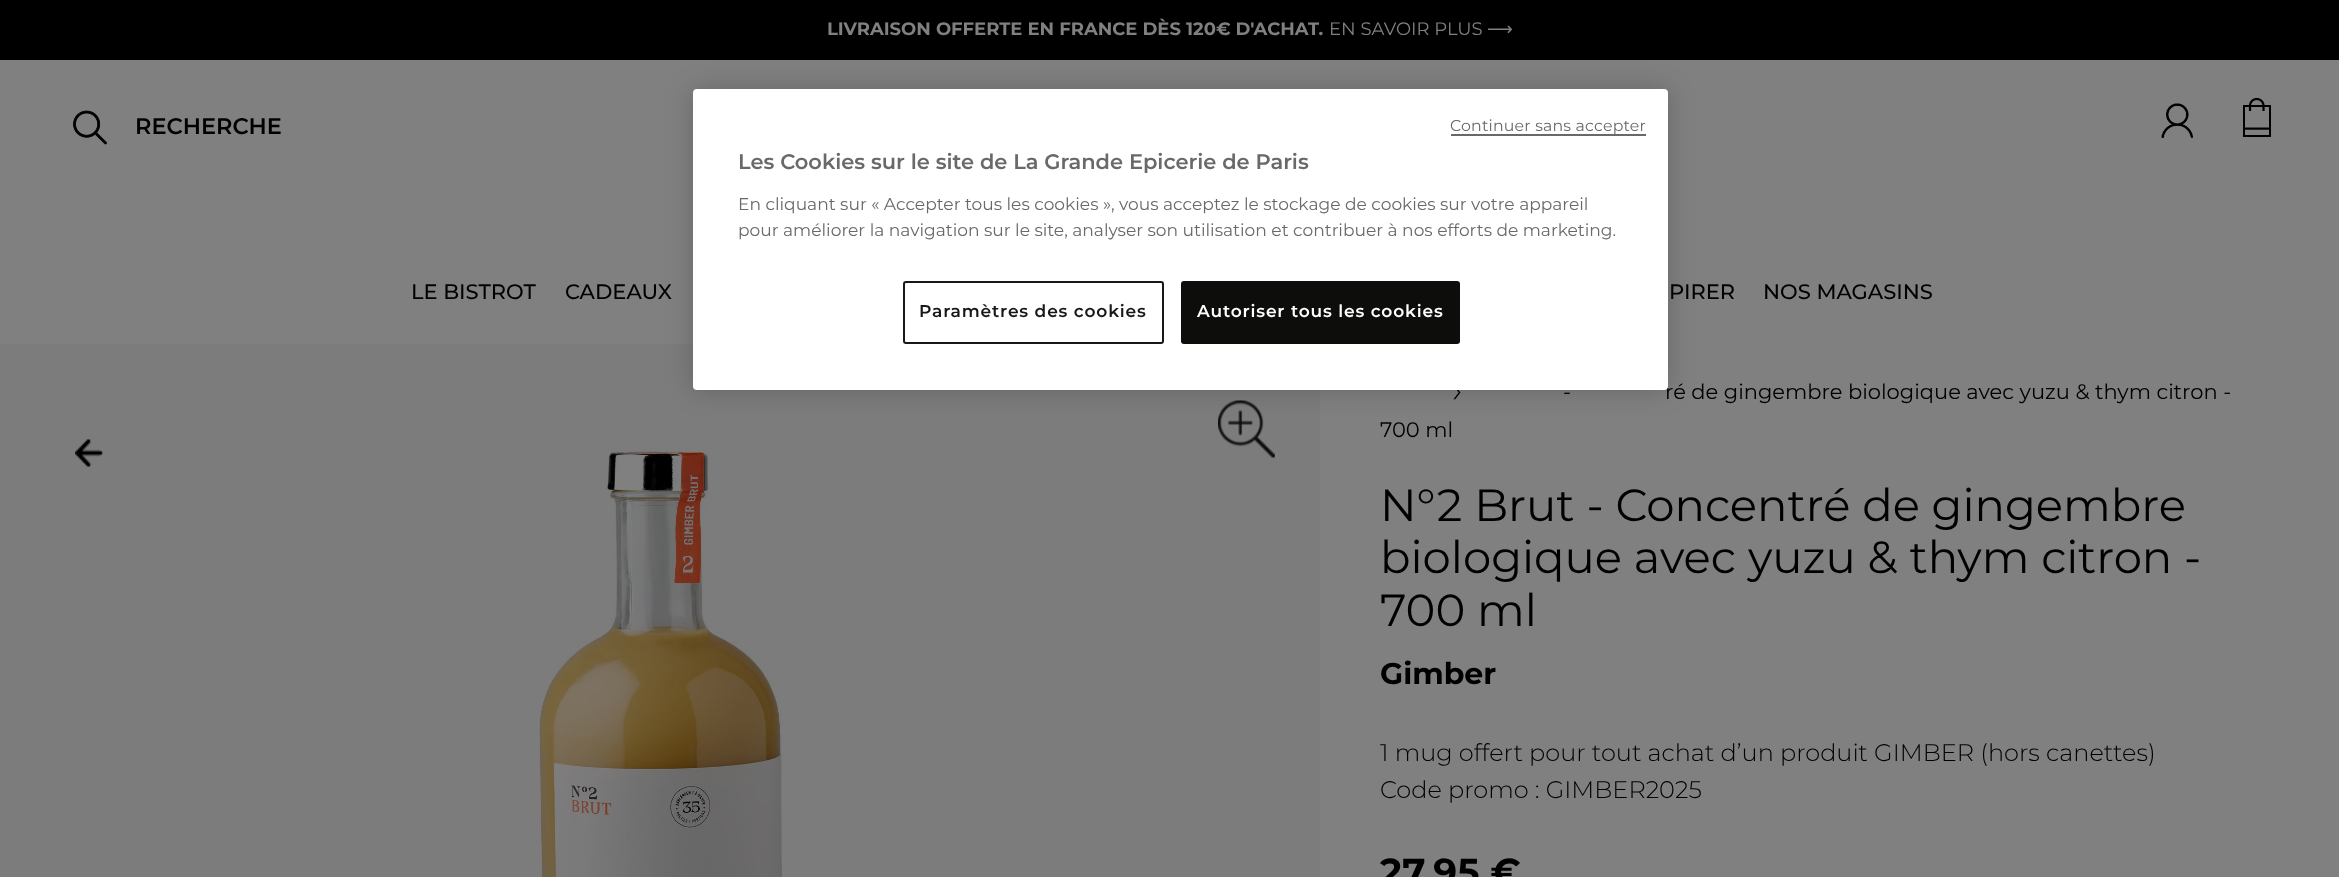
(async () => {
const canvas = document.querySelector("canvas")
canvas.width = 2339
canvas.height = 877
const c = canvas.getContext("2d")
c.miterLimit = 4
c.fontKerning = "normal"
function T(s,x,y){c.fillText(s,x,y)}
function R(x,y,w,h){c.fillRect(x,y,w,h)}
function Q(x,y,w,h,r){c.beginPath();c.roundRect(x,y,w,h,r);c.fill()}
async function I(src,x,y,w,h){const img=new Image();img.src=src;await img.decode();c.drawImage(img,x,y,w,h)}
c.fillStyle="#808080"
R(0,0,2339,877)
c.fillStyle="#000"
R(0,0,2339,60)
c.font="bold 18px Montserrat"
c.fillStyle="#808080"
T("LIVRAISON OFFERTE EN FRANCE DÈS 120€ D'ACHAT.",827,35)
c.font="18px Montserrat"
T("EN SAVOIR PLUS",1329,35)
c.font="18px DejaVu Sans"
T("⟶",1487,35)
await I("1.png",73,110,34,35)
c.font="600 22.5px Montserrat"
c.fillStyle="#000"
T("RECHERCHE",135,134)
await I("2.png",2161,103,32,35)
await I("3.png",2243,97,28,40)
c.font="500 21px Montserrat"
T("LE BISTROT",411,299)
T("CADEAUX",565,299)
T("PIRER",1669,299)
T("NOS MAGASINS",1763,299)
c.fillStyle="#7c7c7c"
R(0,344,1320,533)
await I("4.png",75,439,29,28)
await I("5.png",1218,400,57,58)
await I("6.png",539,449,244,428)
c.font="300 36px Montserrat"
c.fillStyle="#000"
T("›",1452,402)
c.font="21px Montserrat"
T("-",1563,399)
T("ré de gingembre biologique avec yuzu & thym citron -",1665,399)
T("700 ml",1380,437)
c.font="45px Montserrat"
T("N°2 Brut - Concentré de gingembre",1380,521)
T("biologique avec yuzu & thym citron -",1380,573)
T("700 ml",1380,626)
c.font="bold 30px Montserrat"
T("Gimber",1380,684)
c.font="300 24px Montserrat"
T("1 mug offert pour tout achat d’un produit GIMBER (hors canettes)",1380,761)
T("Code promo : GIMBER2025",1380,798)
c.font="bold 37.5px Montserrat"
T("27,95 €",1380,885)
c.fillStyle="#00000033"
c.filter="blur(13.5px)"
c.beginPath()
c.roundRect(693,89,975,301,4)
c.fill()
c.filter="none"
c.fillStyle="#fff"
Q(693,89,975,301,4)
c.fillStyle="#696969"
R(1451,134,195,2)
c.letterSpacing="0.2px"
c.font="15.75px Montserrat"
T("Continuer sans accepter",1450,131)
c.letterSpacing="0px"
c.font="600 21px Montserrat"
T("Les Cookies sur le site de La Grande Epicerie de Paris",738,169)
c.font="17.07px Montserrat"
T("En cliquant sur « Accepter tous les cookies », vous acceptez le stockage de cookies sur votre appareil",738,210)
T("pour améliorer la navigation sur le site, analyser son utilisation et contribuer à nos efforts de marketing.",738,236)
c.beginPath()
c.roundRect(904,282,259,61,2)
c.strokeStyle="#161915"
c.lineWidth=2
c.stroke()
c.letterSpacing="0.85px"
c.font="600 17.07px Montserrat"
c.fillStyle="#161915"
T("Paramètres des cookies",919,317)
c.fillStyle="#0d0d0c"
c.beginPath()
c.roundRect(1182,282,277,61,2)
c.fill()
c.strokeStyle="#0d0d0c"
c.stroke()
c.fillStyle="#fff"
T("Autoriser tous les cookies",1197,317)
})()
